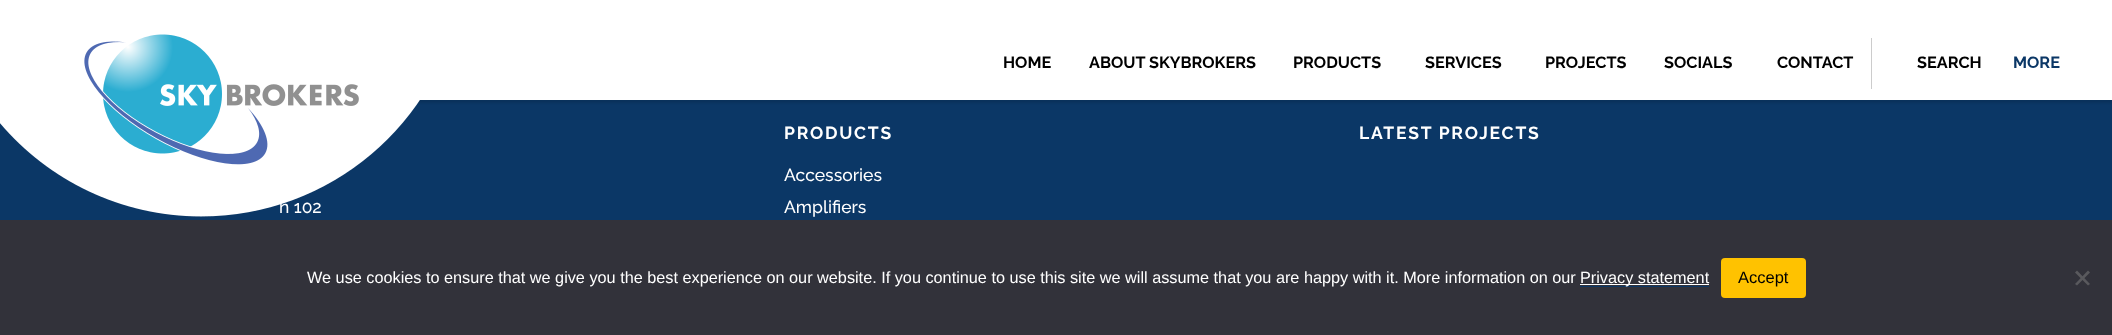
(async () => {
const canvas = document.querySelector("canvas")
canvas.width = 2112
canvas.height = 335
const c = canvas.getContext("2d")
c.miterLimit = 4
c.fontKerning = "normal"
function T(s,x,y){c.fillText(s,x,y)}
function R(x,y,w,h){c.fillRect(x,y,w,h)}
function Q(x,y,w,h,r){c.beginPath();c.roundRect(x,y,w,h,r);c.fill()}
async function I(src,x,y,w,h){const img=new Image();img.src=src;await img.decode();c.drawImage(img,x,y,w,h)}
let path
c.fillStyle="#0b3766"
R(0,0,2112,335)
c.fillStyle="#0000001a"
c.filter="blur(1px)"
c.beginPath()
c.rect(0,3,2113,100)
c.fill()
c.filter="none"
c.fillStyle="#fff"
R(0,0,2112,100)
c.font="500 17.5px Raleway"
T("n 102",279,213)
await I("1.png",0,34,420,183)
c.font="bold 16.25px Raleway"
c.fillStyle="#000"
T("HOME",1003,68)
T("ABOUT SKYBROKERS",1089,68)
T("PRODUCTS",1293,68)
T("SERVICES",1425,68)
T("PROJECTS",1545,68)
T("SOCIALS",1664,68)
T("CONTACT",1777,68)
c.fillStyle="#ccc"
R(1871,38,1,51)
c.fillStyle="#000"
T("SEARCH",1917,68)
c.fillStyle="#0b3766"
T("MORE",2013,68)
c.letterSpacing="1.75px"
c.font="bold 17.5px Raleway"
c.fillStyle="#fff"
T("PRODUCTS",784,139)
c.letterSpacing="0px"
c.font="500 17.5px Raleway"
T("Accessories",784,181)
T("Amplifiers",784,213)
c.letterSpacing="1.75px"
c.font="bold 17.5px Raleway"
T("LATEST PROJECTS",1359,139)
c.fillStyle="#32323a"
R(0,220,2112,115)
c.letterSpacing="0px"
c.font="16.25px Liberation Sans"
c.fillStyle="#fff"
T("We use cookies to ensure that we give you the best experience on our website. If you continue to use this site we will assume that you are happy with it. More information on our",307,283)
c.fillStyle="#0b3766"
R(1580,286,129,1)
c.fillStyle="#fff"
R(1580,284,129,1)
T("Privacy statement",1580,283)
c.fillStyle="#ffc200"
Q(1721,258,85,40,4)
c.font="16.5px Liberation Sans"
c.fillStyle="#000"
T("Accept",1738,283)
c.fillStyle="#59595d"
path = new Path2D("M2088 270.5l2 2l-13 13l-2-1.5z")
c.fill(path)
path = new Path2D("M2075 272.5l2-2l13 13.5l-2 1.5z")
c.fill(path)
})()
